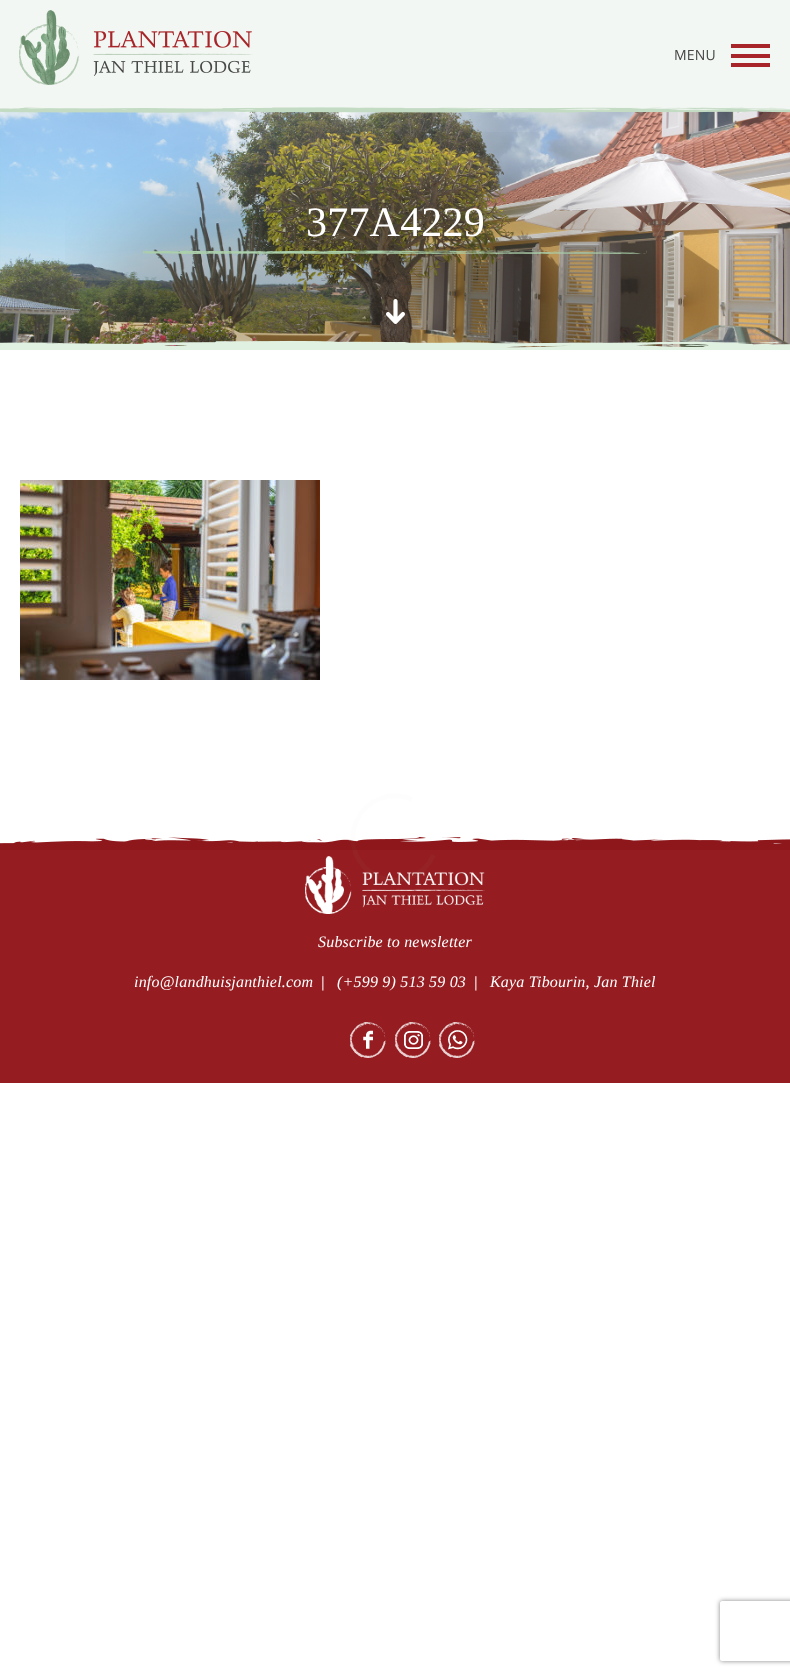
(async () => {
const canvas = document.querySelector("canvas")
canvas.width = 790
canvas.height = 1675
const c = canvas.getContext("2d")
c.miterLimit = 4
c.fontKerning = "normal"
function T(s,x,y){c.fillText(s,x,y)}
function R(x,y,w,h){c.fillRect(x,y,w,h)}
async function I(src,x,y,w,h){const img=new Image();img.src=src;await img.decode();c.drawImage(img,x,y,w,h)}
let path
c.fillStyle="#fff"
R(0,0,790,1675)
c.fillStyle="#f3f7f3"
R(0,0,790,111)
await I("1.png",19,10,234,75)
c.fillStyle="#a72529"
R(731,44,39,4)
c.letterSpacing="0.2px"
c.font="14px Open Sans"
c.fillStyle="#454645"
T("MENU",674,60)
c.fillStyle="#a72529"
R(731,54,39,4)
R(731,63,39,4)
await I("3.png",0,111,790,237)
await I("2.png",0,107,790,6)
await I("4.png",65,132,660,216)
await I("5.png",143,250,504,4)
c.font="42px Liberation Serif"
c.fillStyle="#fff"
T("377A4229",306,236)
await I("6.png",386,299,19,25)
await I("7.png",0,341,790,9)
await I("8.png",20,480,300,200)
c.fillStyle="#951d21"
R(0,850,790,233)
await I("9.png",0,836,790,14)
await I("10.png",305,856,180,58)
path = new Path2D("M433.5 855c-9.5 21.5-34.5 31-55.5 21.5c-21.5-9.5-31-34.5-21.5-55.5c9.5-21.5 34.5-31 55.5-21.5")
c.strokeStyle="#a7cda708"
c.lineWidth=4.8
c.stroke(path)
c.font="italic 16px Liberation Serif"
c.fillStyle="#fff"
T("Subscribe to newsletter",318,947)
T("info@landhuisjanthiel.com",134,987)
c.font="14px Open Sans"
T("|",319,987)
c.font="italic 16px Liberation Serif"
T("(+599 9) 513 59 03",337,987)
c.font="14px Open Sans"
T("|",472,987)
c.font="italic 16px Liberation Serif"
T("Kaya Tibourin, Jan Thiel",490,987)
await I("11.png",350,1022,36,36)
await I("12.png",395,1022,36,36)
await I("13.png",439,1022,36,36)
c.save()
path = new Path2D("M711 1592h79v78h-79zm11 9h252c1 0 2 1 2 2v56c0 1-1 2-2 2h-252c-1 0-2-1-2-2v-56c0-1 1-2 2-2z")
c.clip(path,"evenodd")
c.fillStyle="#848484"
c.filter="blur(2.5px)"
c.beginPath()
c.roundRect(720,1601,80,60,2)
c.fill()
c.filter="none"
c.restore()
})()
